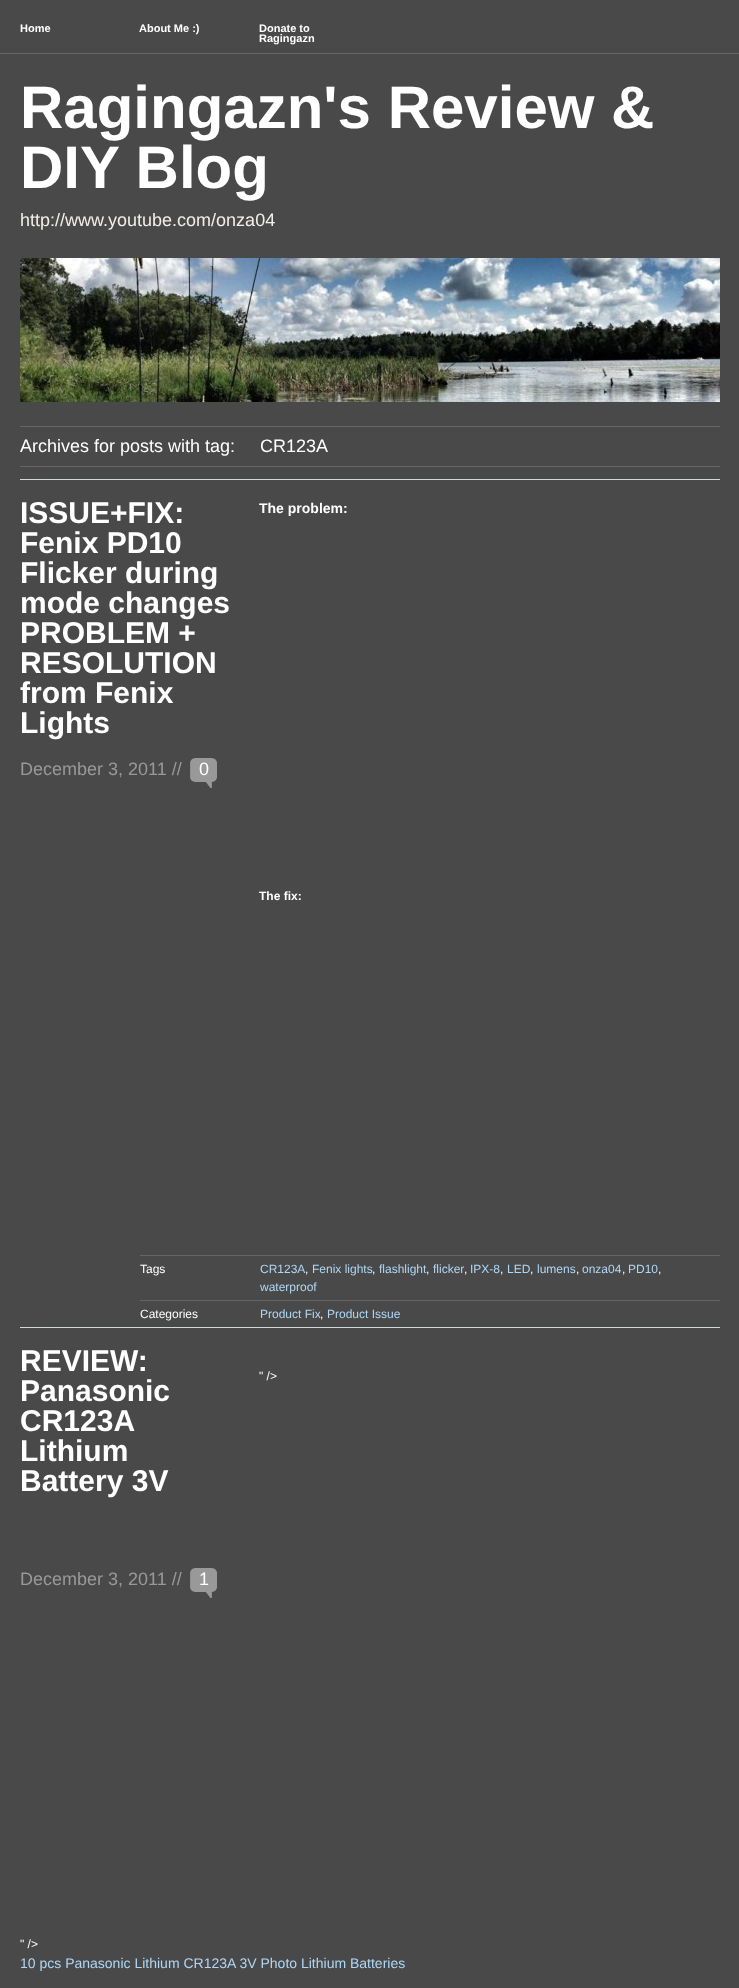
(async () => {
const canvas = document.querySelector("canvas")
canvas.width = 739
canvas.height = 1988
const c = canvas.getContext("2d")
c.miterLimit = 4
c.fontKerning = "normal"
function T(s,x,y){c.fillText(s,x,y)}
function R(x,y,w,h){c.fillRect(x,y,w,h)}
async function I(src,x,y,w,h){const img=new Image();img.src=src;await img.decode();c.drawImage(img,x,y,w,h)}
c.fillStyle="#494949"
R(0,0,739,1988)
c.fillStyle="#666"
R(0,53,739,1)
c.font="bold 11px Liberation Sans"
c.fillStyle="#fff"
T("Home",20,32)
T("About Me :)",139,32)
T("Donate to",259,32)
T("Ragingazn",259,42)
c.font="bold 60px Liberation Sans"
T("Ragingazn's Review &",20,128)
T("DIY Blog",20,188)
c.font="18px Liberation Sans"
c.fillStyle="#f1efeb"
T("http://www.youtube.com/onza04",20,226)
await I("1.png",20,258,700,144)
c.fillStyle="#666"
R(20,426,700,1)
c.fillStyle="#fff"
T("Archives for posts with tag:",20,452)
T("CR123A",260,452)
c.fillStyle="#666"
R(20,466,700,1)
c.fillStyle="#d1d9dc"
R(20,479,700,1)
c.font="bold 30px Liberation Sans"
c.fillStyle="#fff"
T("ISSUE+FIX:",20,523)
T("Fenix PD10",20,553)
T("Flicker during",20,583)
T("mode changes",20,613)
T("PROBLEM +",20,643)
T("RESOLUTION",20,673)
T("from Fenix",20,703)
T("Lights",20,733)
c.font="18px Liberation Sans"
c.fillStyle="#999"
T("December 3, 2011 //",20,775)
await I("2.png",190,758,27,30)
c.fillStyle="#fff"
T("0",199,775)
c.font="bold 14px Liberation Sans"
T("The problem:",259,513)
c.font="bold 12px Liberation Sans"
T("The fix:",259,900)
c.fillStyle="#666"
R(140,1255,580,1)
c.font="12px Liberation Sans"
c.fillStyle="#fff"
T("Tags",140,1273)
c.fillStyle="#afd7f5"
T("CR123A",260,1273)
c.fillStyle="#fff"
T(",",305,1273)
c.fillStyle="#afd7f5"
T("Fenix lights",312,1273)
c.fillStyle="#fff"
T(",",372,1273)
c.fillStyle="#afd7f5"
T("flashlight",379,1273)
c.fillStyle="#fff"
T(",",426,1273)
c.fillStyle="#afd7f5"
T("flicker",433,1273)
T("IPX-8",470,1273)
T("LED",507,1273)
T("lumens",537,1273)
T("onza04",582,1273)
T("PD10",628,1273)
c.fillStyle="#fff"
T(",",464,1273)
T(",",500,1273)
T(",",530,1273)
T(",",576,1273)
T(",",622,1273)
T(",",658,1273)
c.fillStyle="#afd7f5"
T("waterproof",260,1291)
c.fillStyle="#666"
R(140,1300,580,1)
c.fillStyle="#fff"
T("Categories",140,1318)
c.fillStyle="#afd7f5"
T("Product Fix",260,1318)
c.fillStyle="#fff"
T(",",320,1318)
c.fillStyle="#afd7f5"
T("Product Issue",327,1318)
c.fillStyle="#d1d9dc"
R(20,1327,700,1)
c.font="bold 30px Liberation Sans"
c.fillStyle="#fff"
T("REVIEW:",20,1371)
T("Panasonic",20,1401)
T("CR123A",20,1431)
T("Lithium",20,1461)
T("Battery 3V",20,1491)
c.font="18px Liberation Sans"
c.fillStyle="#999"
T("December 3, 2011 //",20,1585)
await I("2.png",190,1568,27,30)
c.fillStyle="#fff"
T("1",199,1585)
c.font="12px Liberation Sans"
T("\" />",259,1380)
T("\" />",20,1948)
c.font="14px Liberation Sans"
c.fillStyle="#afd7f5"
T("10 pcs Panasonic Lithium CR123A 3V Photo Lithium Batteries",20,1968)
})()
